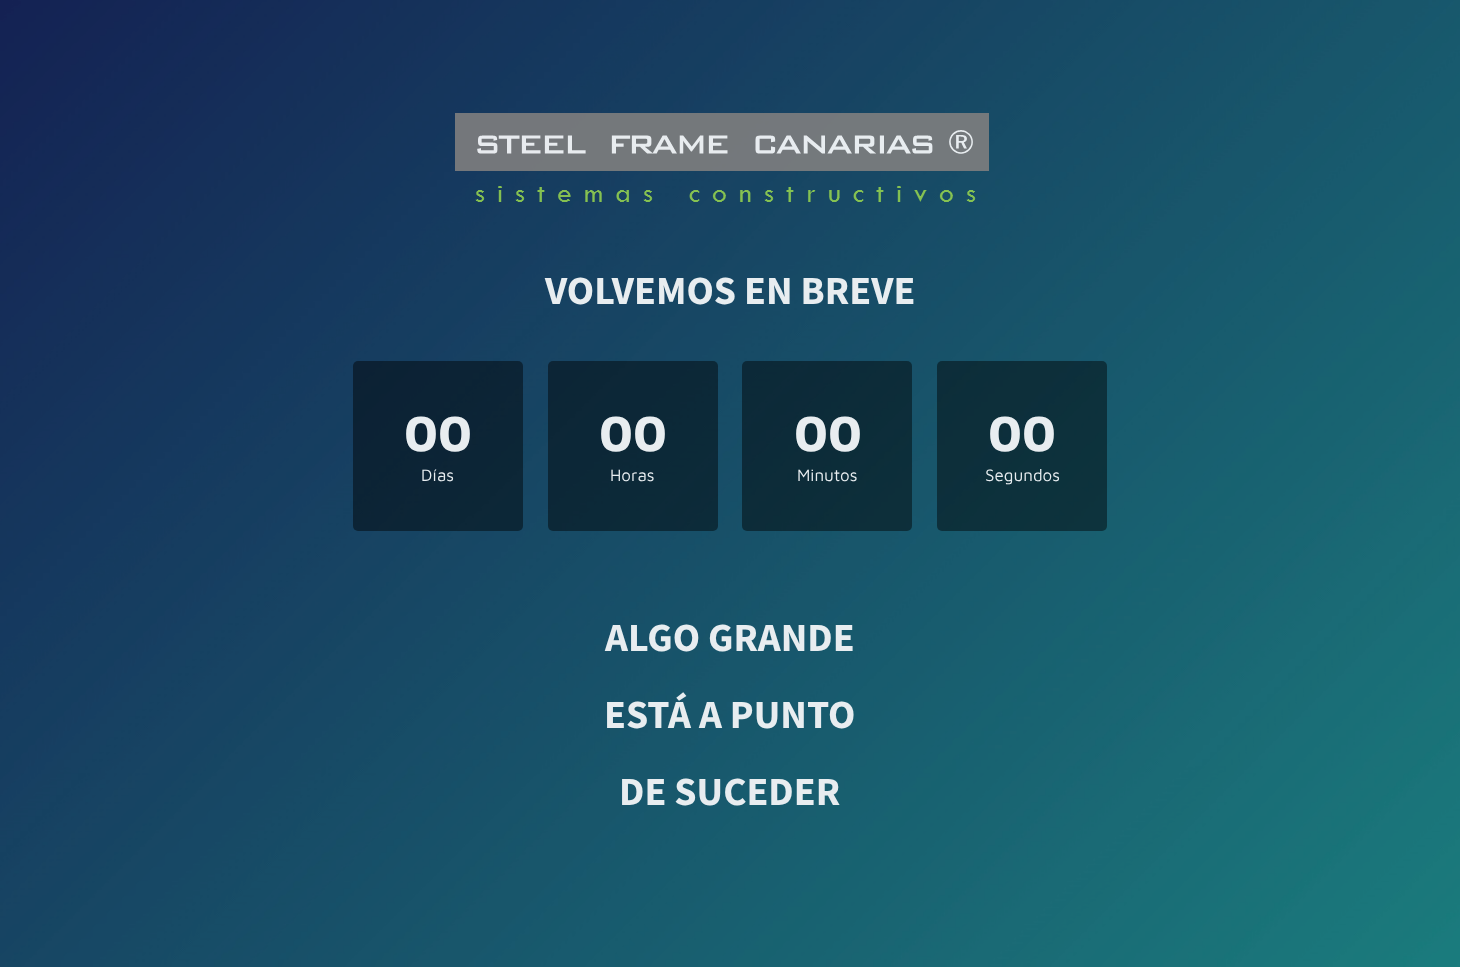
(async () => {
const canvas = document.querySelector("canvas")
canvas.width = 1460
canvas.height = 967
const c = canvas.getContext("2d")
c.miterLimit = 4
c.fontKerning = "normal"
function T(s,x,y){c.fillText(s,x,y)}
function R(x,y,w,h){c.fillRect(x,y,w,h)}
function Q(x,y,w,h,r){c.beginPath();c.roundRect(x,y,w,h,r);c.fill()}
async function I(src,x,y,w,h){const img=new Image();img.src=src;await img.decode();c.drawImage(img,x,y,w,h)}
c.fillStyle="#fff"
R(0,0,1460,967)
await I("1.png",0,0,1460,967)
await I("2.png",455,113,534,89)
c.font="bold 40px Source Sans Pro"
c.fillStyle="#e8edf0"
T("VOLVEMOS EN BREVE",545,304)
c.fillStyle="#00000073"
Q(353,361,170,170,5)
c.font="bold 51px Maven Pro"
c.fillStyle="#e8edf0"
T("00",404,451)
c.font="17px Maven Pro"
T("Días",421,481)
c.fillStyle="#00000073"
Q(548,361,170,170,5)
c.font="bold 51px Maven Pro"
c.fillStyle="#e8edf0"
T("00",599,451)
c.font="17px Maven Pro"
T("Horas",610,481)
c.fillStyle="#00000073"
Q(742,361,170,170,5)
c.font="bold 51px Maven Pro"
c.fillStyle="#e8edf0"
T("00",794,451)
c.font="17px Maven Pro"
T("Minutos",797,481)
c.fillStyle="#00000073"
Q(937,361,170,170,5)
c.font="bold 51px Maven Pro"
c.fillStyle="#e8edf0"
T("00",988,451)
c.font="17px Maven Pro"
T("Segundos",985,481)
c.font="bold 40px Source Sans Pro"
T("ALGO GRANDE",605,651)
T("ESTÁ A PUNTO",604,728)
T("DE SUCEDER",619,805)
})()
